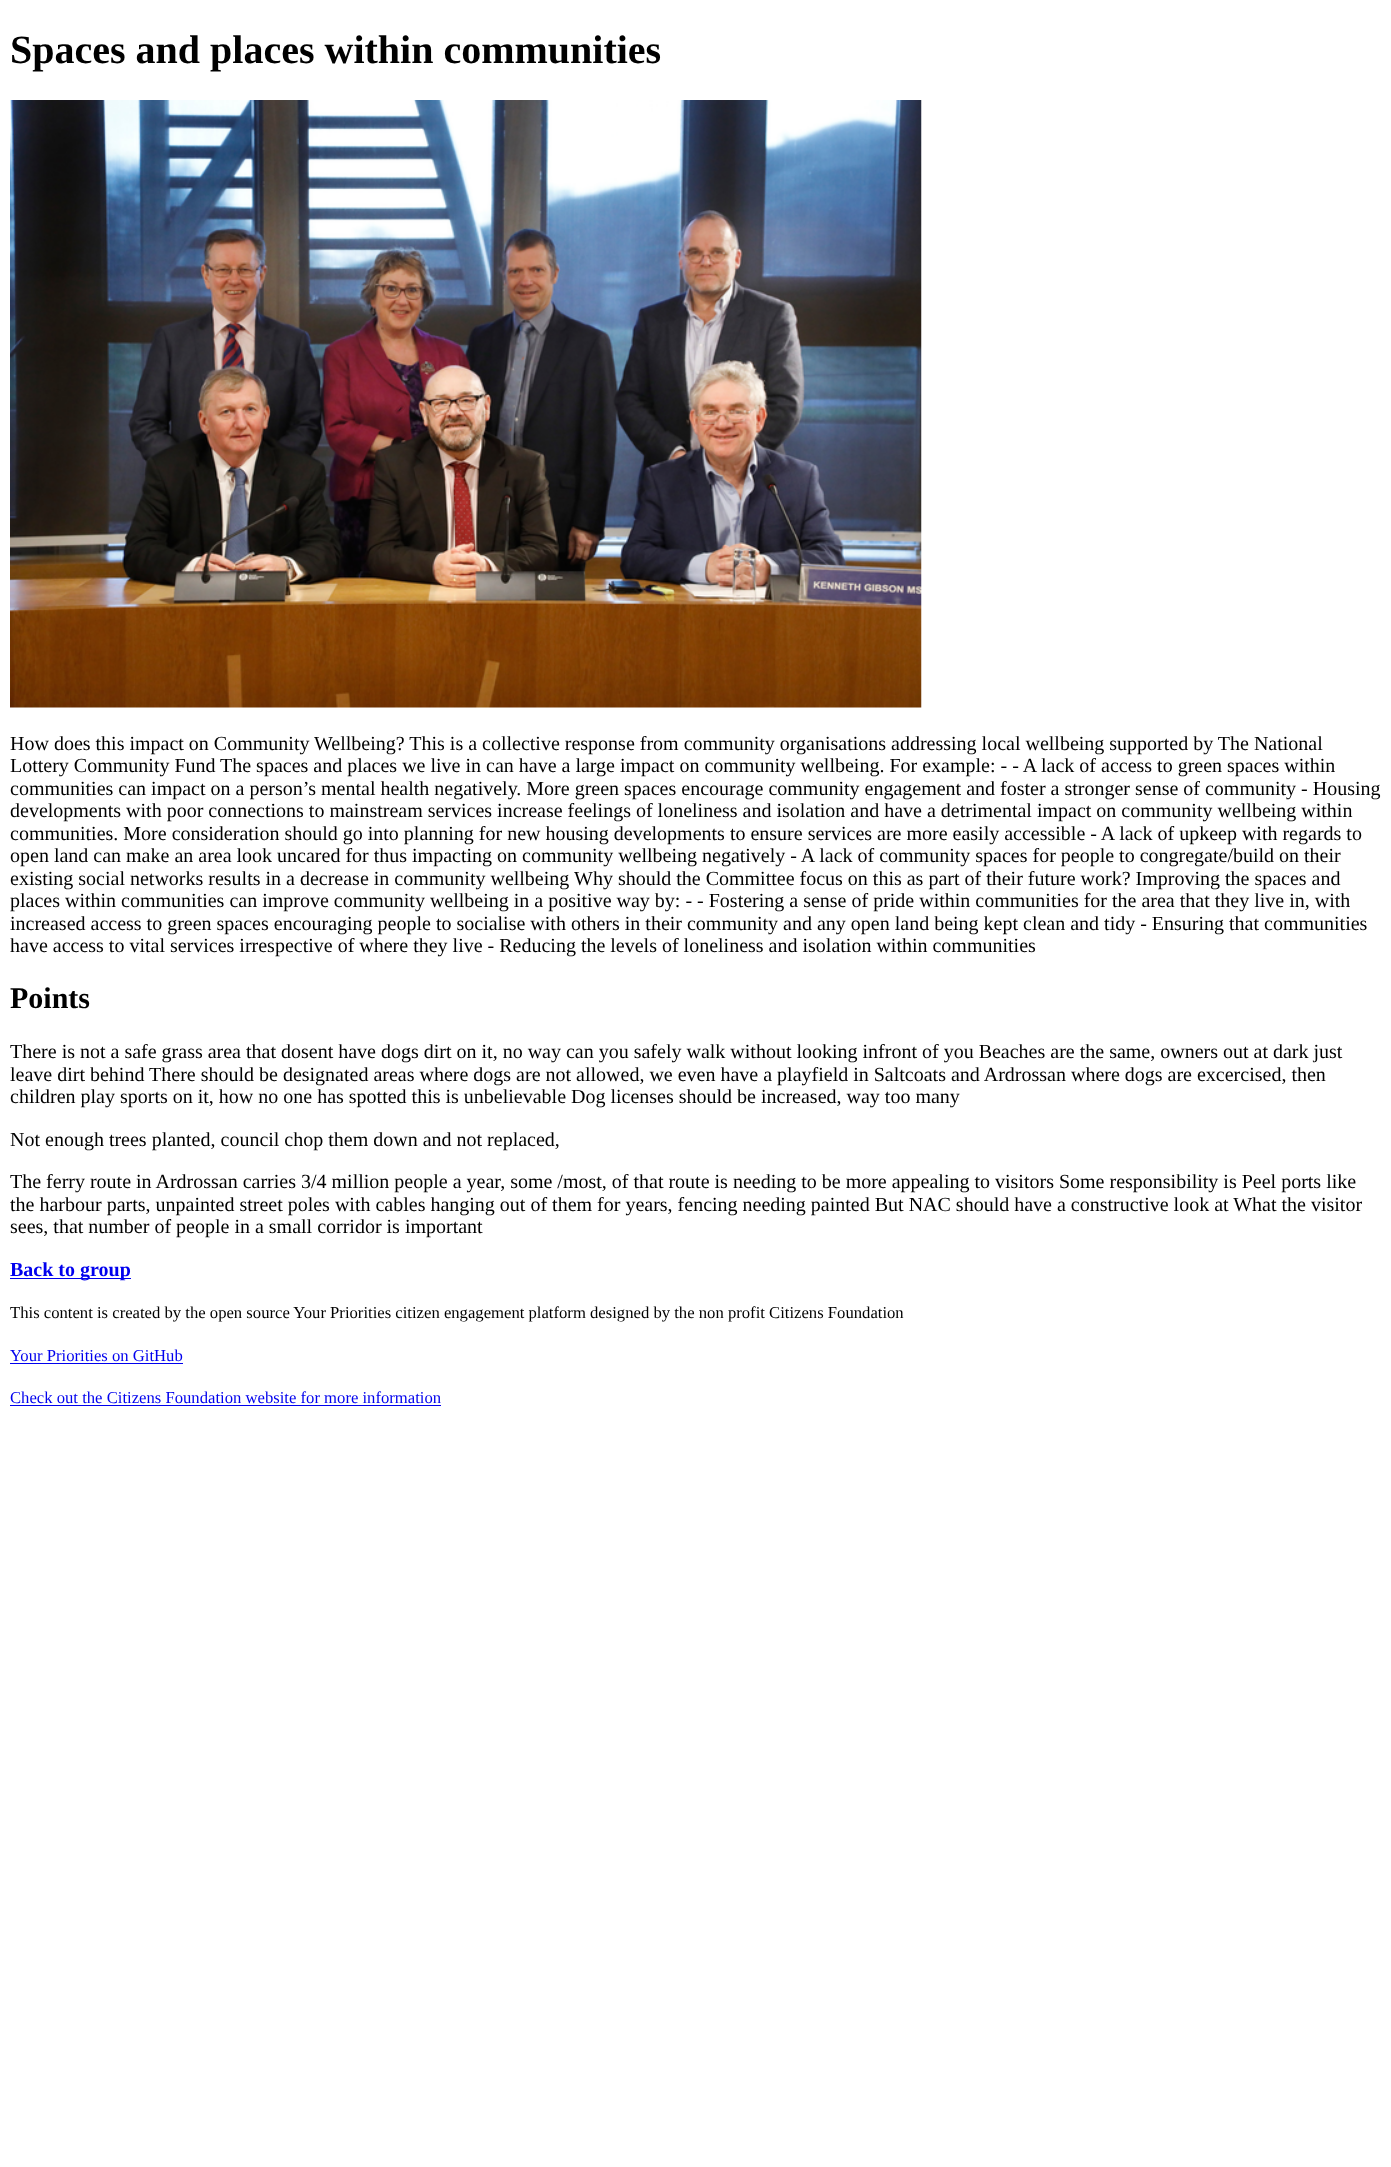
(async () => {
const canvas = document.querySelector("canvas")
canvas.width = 1391
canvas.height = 2167
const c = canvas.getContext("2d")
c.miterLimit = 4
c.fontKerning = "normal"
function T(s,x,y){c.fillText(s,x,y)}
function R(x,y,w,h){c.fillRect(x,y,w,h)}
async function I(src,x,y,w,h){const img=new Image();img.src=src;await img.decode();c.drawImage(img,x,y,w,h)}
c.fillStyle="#fff"
R(0,0,1391,2167)
c.font="bold 40px Liberation Serif"
c.fillStyle="#000"
T("Spaces and places within communities",10,63)
await I("1.png",10,100,912,608)
c.font="20px Liberation Serif"
T("How does this impact on Community Wellbeing? This is a collective response from community organisations addressing local wellbeing supported by The National",10,750)
T("Lottery Community Fund",10,772)
T("The spaces and places we live in can have a large impact on community wellbeing. For example: - - A lack of access to green spaces within",220,772)
T("communities can impact on a person’s mental health negatively. More green spaces encourage community engagement and foster a stronger sense of community - Housing",10,795)
T("developments with poor connections to mainstream services increase feelings of loneliness and isolation and have a detrimental impact on community wellbeing within",10,817)
T("communities. More consideration should go into planning for new housing developments to ensure services are more easily accessible - A lack of upkeep with regards to",10,840)
T("open land can make an area look uncared for thus impacting on community wellbeing negatively - A lack of community spaces for people to congregate/build on their",10,862)
T("existing social networks results in a decrease in community wellbeing",10,885)
T("Why should the Committee focus on this as part of their future work? Improving the spaces and",574,885)
T("places within communities can improve community wellbeing in a positive way by: - - Fostering a sense of pride within communities for the area that they live in, with",10,907)
T("increased access to green spaces encouraging people to socialise with others in their community and any open land being kept clean and tidy - Ensuring that communities",10,930)
T("have access to vital services irrespective of where they live - Reducing the levels of loneliness and isolation within communities",10,952)
c.font="bold 30px Liberation Serif"
T("Points",10,1008)
c.font="20px Liberation Serif"
T("There is not a safe grass area that dosent have dogs dirt on it, no way can you safely walk without looking infront of you Beaches are the same, owners out at dark just",10,1058)
T("leave dirt behind There should be designated areas where dogs are not allowed, we even have a playfield in Saltcoats and Ardrossan where dogs are excercised, then",10,1081)
T("children play sports on it, how no one has spotted this is unbelievable Dog licenses should be increased, way too many",10,1103)
T("Not enough trees planted, council chop them down and not replaced,",10,1146)
T("The ferry route in Ardrossan carries 3/4 million people a year, some /most, of that route is needing to be more appealing to visitors Some responsibility is Peel ports like",10,1188)
T("the harbour parts, unpainted street poles with cables hanging out of them for years, fencing needing painted But NAC should have a constructive look at What the visitor",10,1211)
T("sees, that number of people in a small corridor is important",10,1233)
c.fillStyle="#00e"
R(10,1278,121,1)
c.font="bold 20px Liberation Serif"
T("Back to group",10,1276)
c.font="16.67px Liberation Serif"
c.fillStyle="#000"
T("This content is created by the open source Your Priorities citizen engagement platform designed by the non profit Citizens Foundation",10,1318)
c.fillStyle="#00e"
T("Your Priorities on GitHub",10,1361)
R(10,1363,173,1)
T("Check out the Citizens Foundation website for more information",10,1403)
R(10,1405,431,1)
})()
